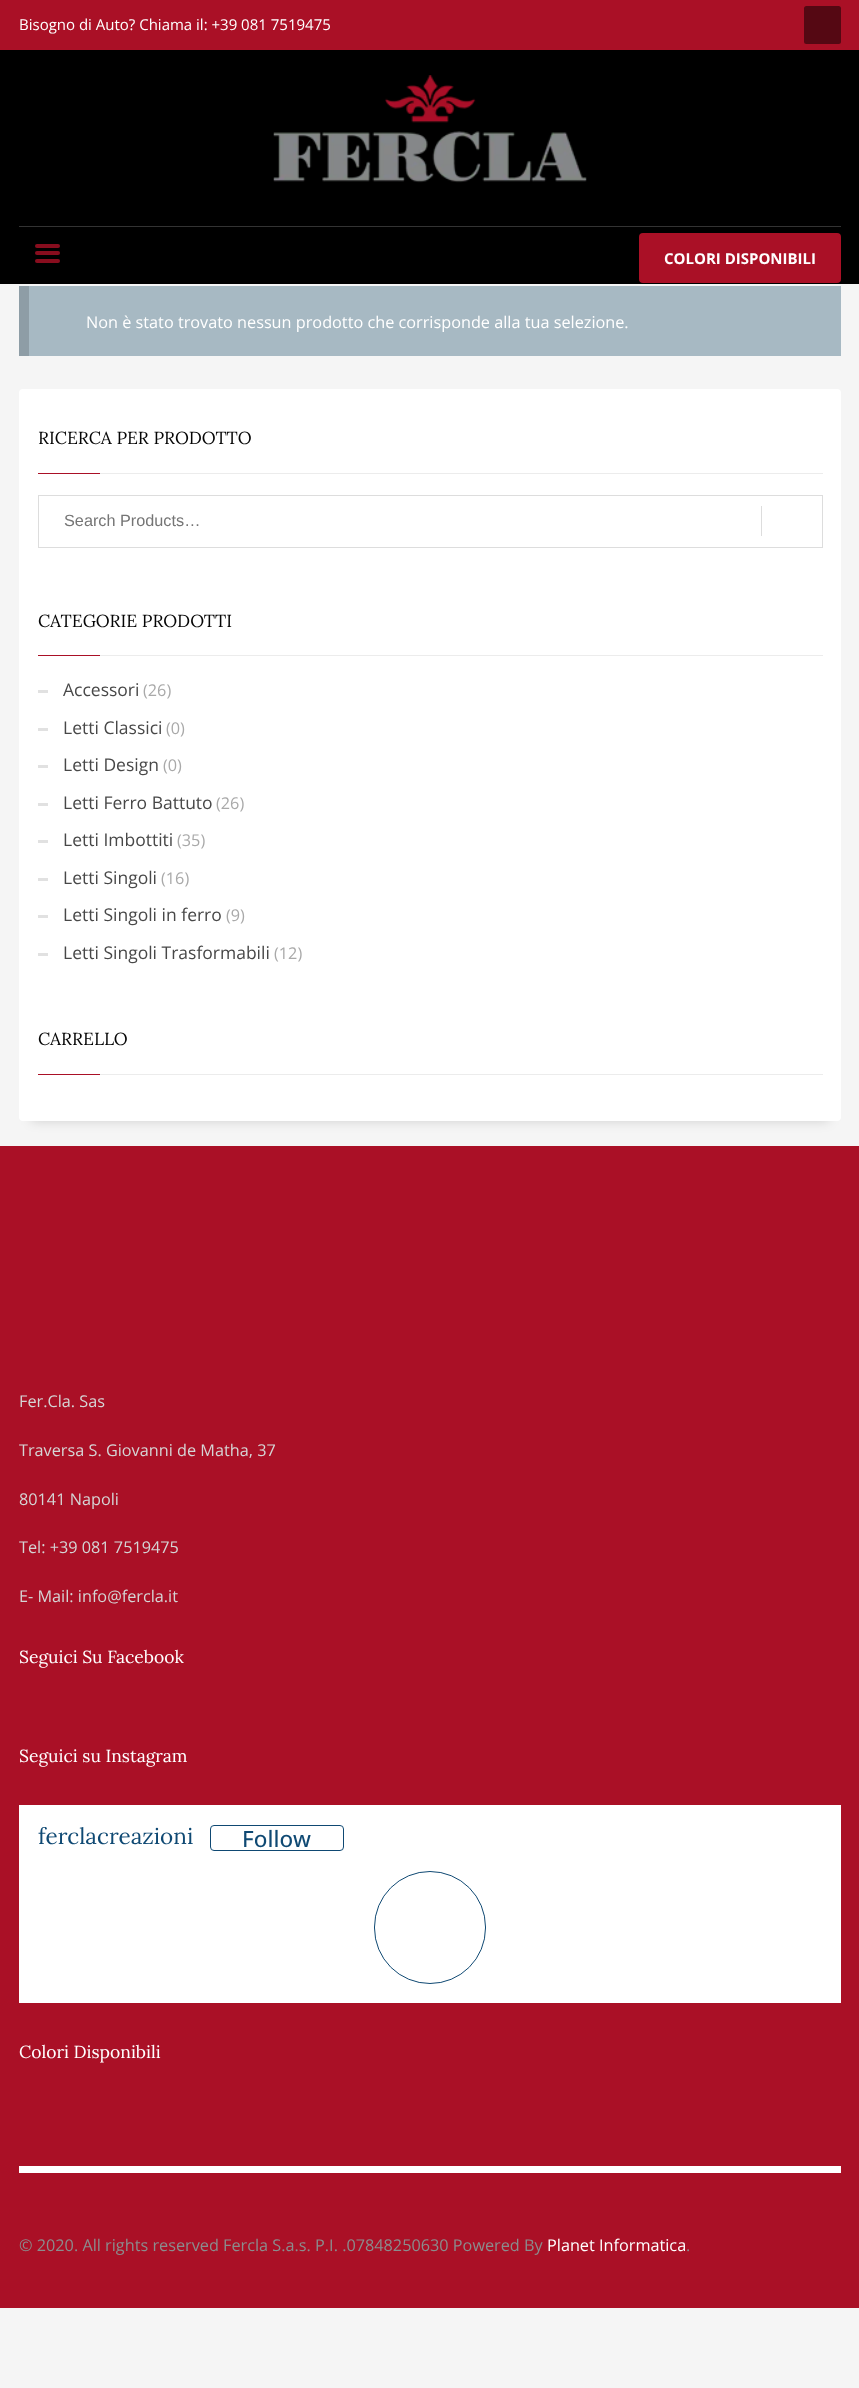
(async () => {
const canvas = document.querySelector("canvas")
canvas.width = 859
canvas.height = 2388
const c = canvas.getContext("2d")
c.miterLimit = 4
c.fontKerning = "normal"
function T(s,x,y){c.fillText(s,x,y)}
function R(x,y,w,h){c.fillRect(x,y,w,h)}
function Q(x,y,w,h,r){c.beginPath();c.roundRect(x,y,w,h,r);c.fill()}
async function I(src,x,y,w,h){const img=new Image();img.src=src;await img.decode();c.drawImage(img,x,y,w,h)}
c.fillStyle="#f5f5f5"
R(0,0,859,2388)
c.fillStyle="#000"
R(0,50,859,234)
c.fillStyle="#aa1026"
R(0,0,859,50)
c.font="15px Open Sans"
c.fillStyle="#fff"
T("Bisogno di Auto? Chiama il: +39 081 7519475",19,30)
c.fillStyle="#550813"
Q(804,6,37,38,2.5)
await I("1.png",273,75,314,108)
c.fillStyle="#333"
R(19,226,822,1)
c.fillStyle="#880d1e"
Q(35,244,25,4,2)
Q(35,251,25,4,2)
Q(35,259,25,4,2)
c.fillStyle="#aa1026"
Q(639,233,202,50,4)
c.font="bold 15px Open Sans"
c.fillStyle="#fff"
T("COLORI DISPONIBILI",664,264)
c.fillStyle="#a7b9c3"
R(29,286,812,70)
c.fillStyle="#8e9da6"
R(19,286,10,70)
c.font="16.25px Open Sans"
c.fillStyle="#fff"
T("Non è stato trovato nessun prodotto che corrisponde alla tua selezione.",86,328)
c.fillStyle="#00000026"
c.filter="blur(6px)"
c.beginPath()
c.rect(31,414,798,707)
c.fill()
c.filter="none"
c.fillStyle="#fff"
Q(19,389,822,732,4)
c.font="17.5px Lora"
c.fillStyle="#050505"
T("RICERCA PER PRODOTTO",38,444)
c.fillStyle="#aa1026"
R(38,473,62,1)
c.fillStyle="#ececec"
R(100,473,723,1)
c.strokeStyle="#ddd"
c.strokeRect(38.5,495.5,784,52)
c.font="16.25px Liberation Sans"
c.fillStyle="#757575"
T("Search Products…",64,526)
c.fillStyle="#ddd"
R(761,506,1,30)
c.font="17.5px Lora"
c.fillStyle="#050505"
T("CATEGORIE PRODOTTI",38,627)
c.fillStyle="#aa1026"
R(38,655,62,1)
c.fillStyle="#ececec"
R(100,655,723,1)
c.fillStyle="#e1e1e1"
R(38,690,10,3)
c.font="17.5px Open Sans"
c.fillStyle="#484848"
T("Accessori",63,696)
c.font="16.25px Open Sans"
c.fillStyle="#a9a9a9"
T("(26)",143,696)
c.fillStyle="#e1e1e1"
R(38,728,10,3)
c.font="17.5px Open Sans"
c.fillStyle="#484848"
T("Letti Classici",63,734)
c.font="16.25px Open Sans"
c.fillStyle="#a9a9a9"
T("(0)",166,734)
c.fillStyle="#e1e1e1"
R(38,765,10,3)
c.font="17.5px Open Sans"
c.fillStyle="#484848"
T("Letti Design",63,771)
c.font="16.25px Open Sans"
c.fillStyle="#a9a9a9"
T("(0)",163,771)
c.fillStyle="#e1e1e1"
R(38,803,10,3)
c.font="17.5px Open Sans"
c.fillStyle="#484848"
T("Letti Ferro Battuto",63,809)
c.font="16.25px Open Sans"
c.fillStyle="#a9a9a9"
T("(26)",216,809)
c.fillStyle="#e1e1e1"
R(38,840,10,3)
c.font="17.5px Open Sans"
c.fillStyle="#484848"
T("Letti Imbottiti",63,846)
c.font="16.25px Open Sans"
c.fillStyle="#a9a9a9"
T("(35)",177,846)
c.fillStyle="#e1e1e1"
R(38,878,10,3)
c.font="17.5px Open Sans"
c.fillStyle="#484848"
T("Letti Singoli",63,884)
c.font="16.25px Open Sans"
c.fillStyle="#a9a9a9"
T("(16)",161,884)
c.fillStyle="#e1e1e1"
R(38,915,10,3)
c.font="17.5px Open Sans"
c.fillStyle="#484848"
T("Letti Singoli in ferro",63,921)
c.font="16.25px Open Sans"
c.fillStyle="#a9a9a9"
T("(9)",226,921)
c.fillStyle="#e1e1e1"
R(38,953,10,3)
c.font="17.5px Open Sans"
c.fillStyle="#484848"
T("Letti Singoli Trasformabili",63,959)
c.font="16.25px Open Sans"
c.fillStyle="#a9a9a9"
T("(12)",274,959)
c.font="17.5px Lora"
c.fillStyle="#050505"
T("CARRELLO",38,1045)
c.fillStyle="#aa1026"
R(38,1074,62,1)
c.fillStyle="#ececec"
R(100,1074,723,1)
c.fillStyle="#aa1026"
R(0,1146,859,1162)
c.font="16.25px Open Sans"
c.fillStyle="#d5d5d5"
T("Fer.Cla. Sas",19,1407)
T("Traversa S. Giovanni de Matha, 37",19,1456)
T("80141 Napoli",19,1505)
T("Tel: +39 081 7519475",19,1553)
T("E- Mail: info@fercla.it",19,1602)
c.font="17.5px Lora"
c.fillStyle="#fff"
T("Seguici Su Facebook",19,1663)
T("Seguici su Instagram",19,1762)
R(19,1805,822,198)
c.font="22.5px Lora"
c.fillStyle="#0f4973"
T("ferclacreazioni",38,1844)
c.beginPath()
c.roundRect(210.5,1825.5,133,25,3.5)
c.strokeStyle="#0f4973"
c.stroke()
c.font="500 22.5px Open Sans"
T("Follow",242,1847)
c.beginPath()
c.roundRect(374.5,1871.5,111,112,55.5)
c.stroke()
c.font="17.5px Lora"
c.fillStyle="#fff"
T("Colori Disponibili",19,2058)
R(19,2166,822,7)
c.font="16.25px Open Sans"
c.fillStyle="#8b8c8d"
T("© 2020. All rights reserved Fercla S.a.s. P.I. .07848250630 Powered By",19,2251)
c.fillStyle="#fff"
T("Planet Informatica",547,2251)
c.fillStyle="#8b8c8d"
T(".",686,2251)
})()
